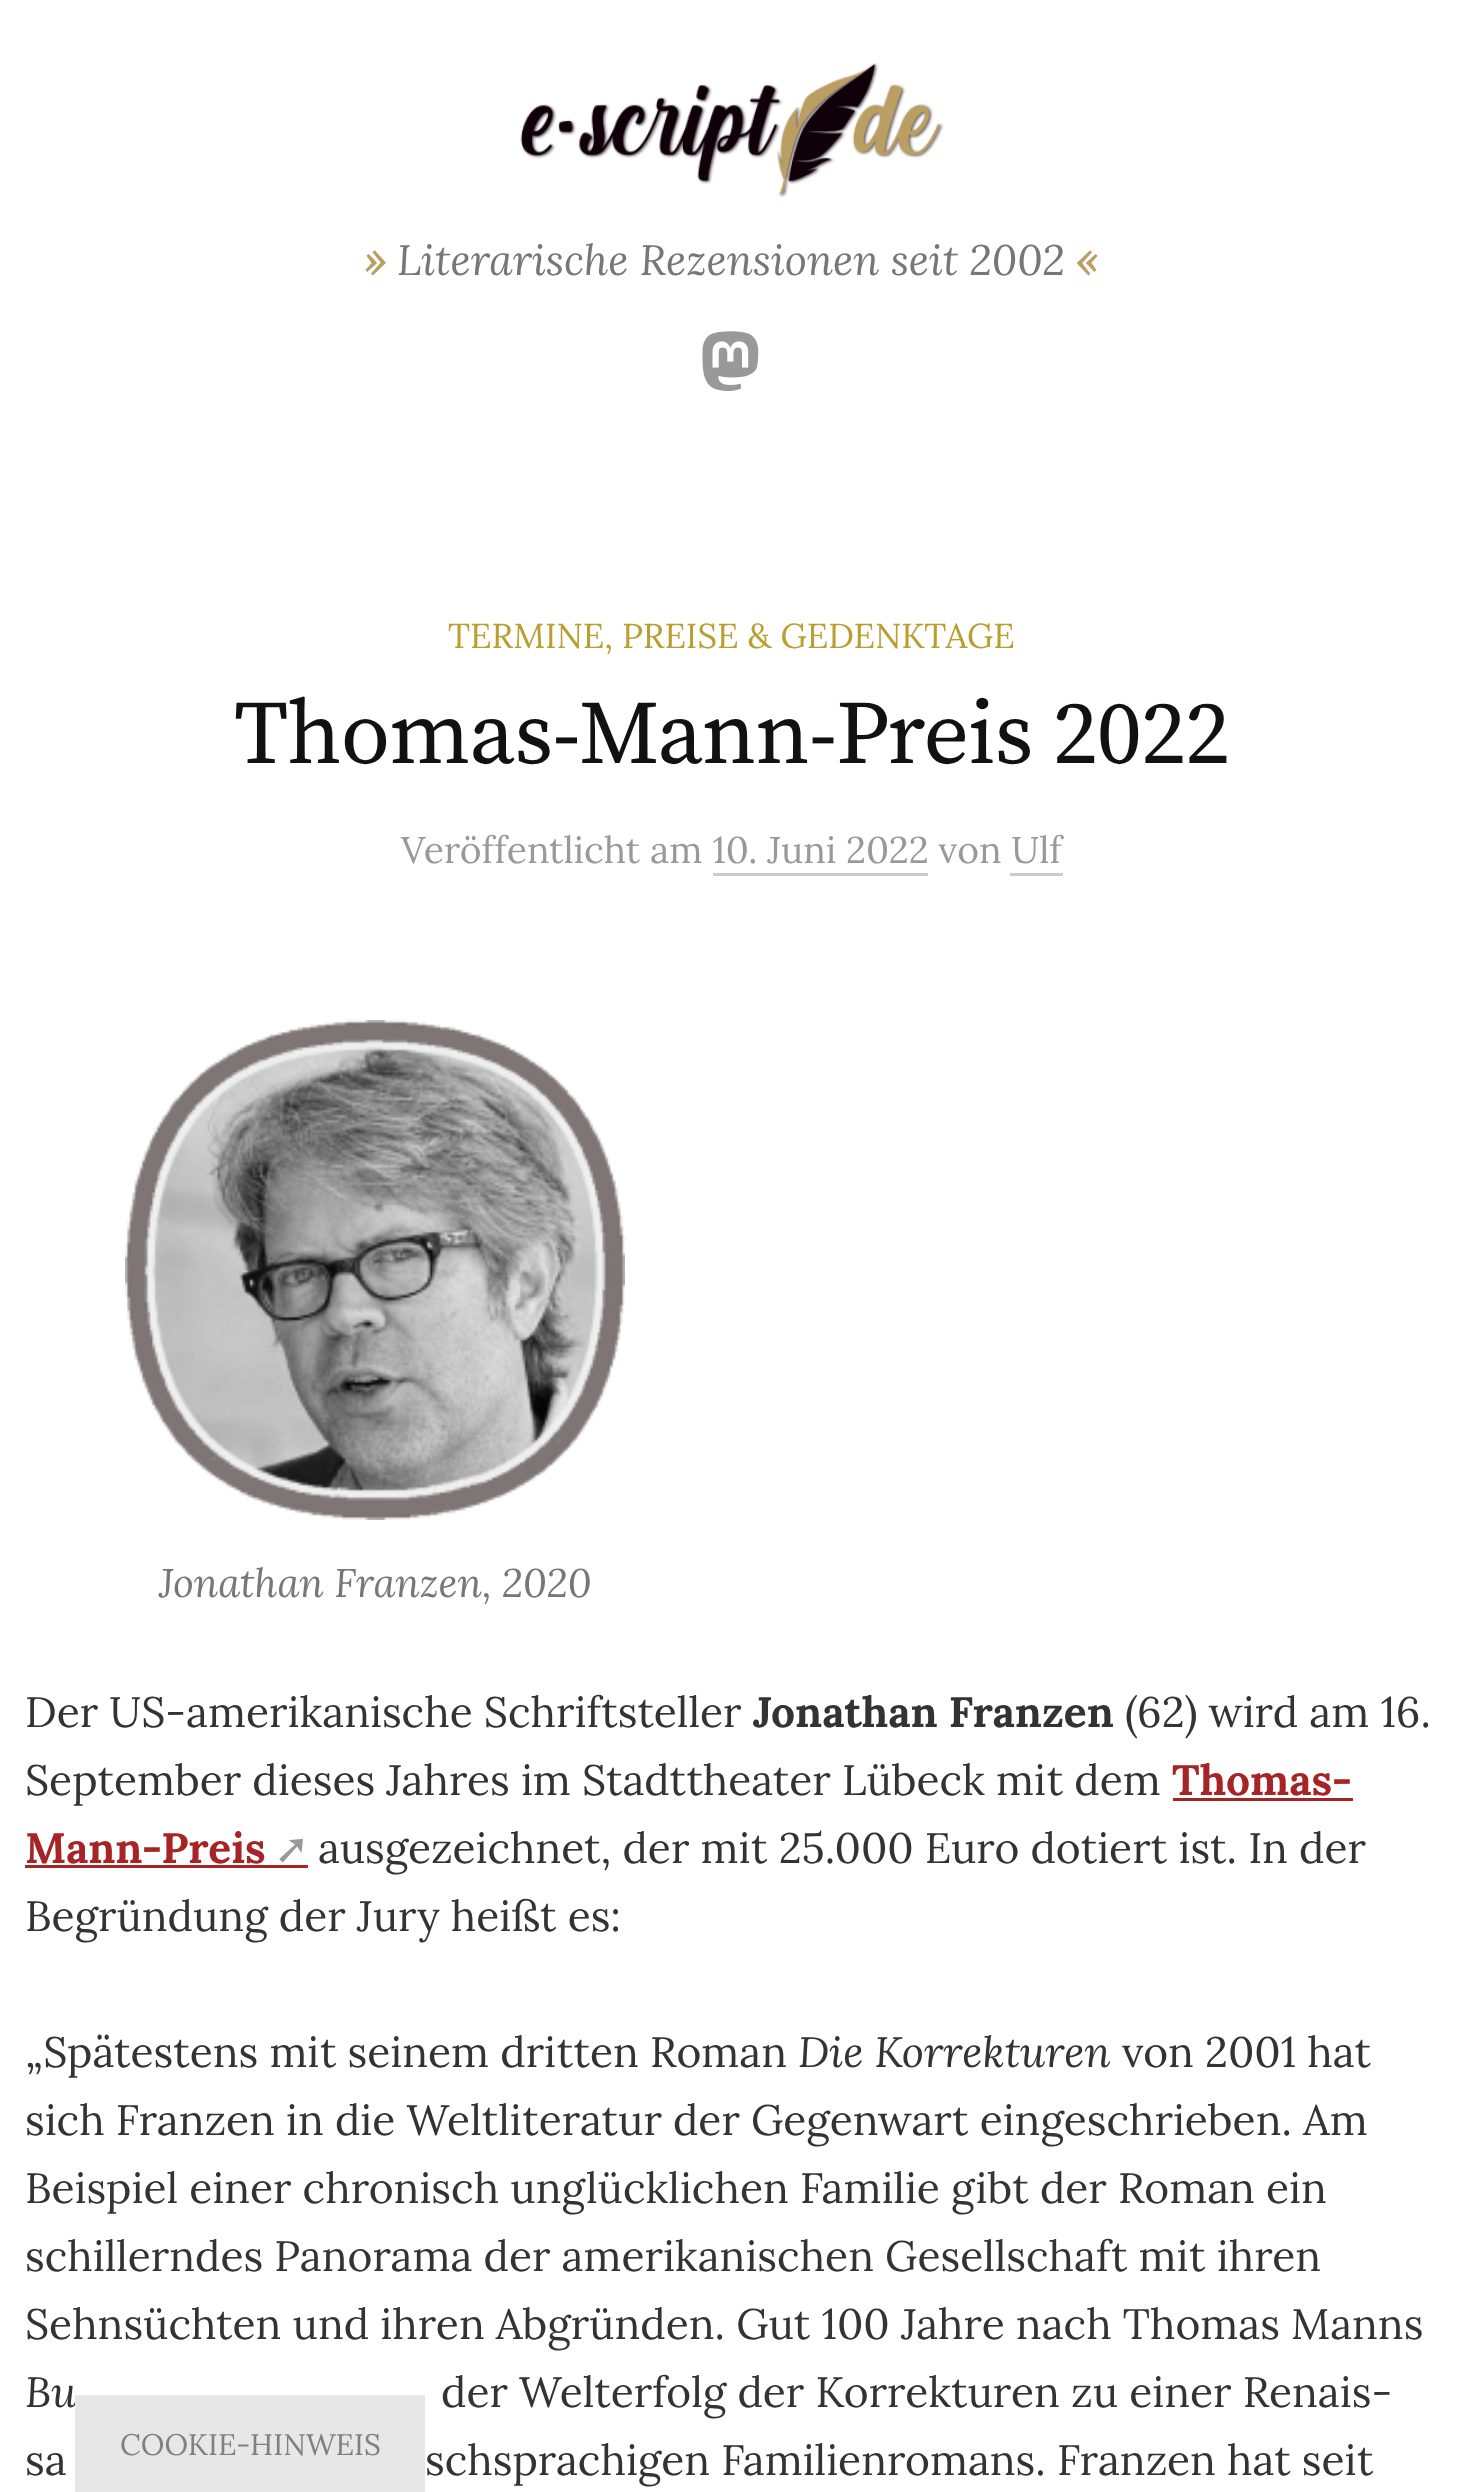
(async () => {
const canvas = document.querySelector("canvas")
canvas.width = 1462
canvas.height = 2492
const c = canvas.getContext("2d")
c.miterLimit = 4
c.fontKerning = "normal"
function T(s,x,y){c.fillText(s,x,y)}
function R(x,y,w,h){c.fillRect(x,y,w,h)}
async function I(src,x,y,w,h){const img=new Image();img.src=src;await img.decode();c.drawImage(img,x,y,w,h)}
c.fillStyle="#fff"
R(0,0,1462,2492)
await I("1.png",520,63,424,135)
c.font="italic bold 42.5px Lora"
c.fillStyle="#ba9e62"
T("»",364,275)
c.font="italic 42.5px Lora"
c.fillStyle="#777"
T("Literarische Rezensionen seit 2002",397,275)
c.font="italic bold 42.5px Lora"
c.fillStyle="#ba9e62"
T("«",1076,275)
await I("2.png",702,331,57,60)
c.font="34.5px Lora"
c.fillStyle="#ba9e30"
T("TERMINE, PREISE & GEDENKTAGE",448,648)
c.letterSpacing="-0.9px"
c.font="90px Source Serif Pro"
c.fillStyle="#111"
T("Thomas-Mann-Preis 2022",234,763)
c.letterSpacing="0px"
c.font="37.2px Lora"
c.fillStyle="#999"
T("Veröffentlicht am 10. Juni 2022 von Ulf",401,863)
c.fillStyle="#ccc"
R(713,873,215,3)
R(1010,873,53,3)
await I("3.png",125,1020,500,500)
c.font="italic 39.9px Lora"
c.fillStyle="#777"
T("Jonathan Franzen, 2020",159,1597)
c.font="42.5px Lora"
c.fillStyle="#333"
T("Der US-amerikanische Schriftsteller",25,1727)
c.font="bold 42.5px Lora"
T("Jonathan Franzen",753,1727)
c.font="42.5px Lora"
T("(62) wird am 16.",1125,1727)
T("September dieses Jahres im Stadttheater Lübeck mit dem",25,1795)
c.font="bold 42.5px Lora"
c.fillStyle="#a62425"
T("Thomas-",1172,1795)
R(1173,1798,180,3)
T("Mann-Preis",25,1863)
c.font="42.5px DejaVu Sans"
c.fillStyle="#999"
T("➚",274,1863)
c.fillStyle="#a62425"
R(25,1865,283,3)
c.font="42.5px Lora"
c.fillStyle="#333"
T("ausgezeichnet, der mit 25.000 Euro dotiert ist. In der",318,1863)
T("Begründung der Jury heißt es:",25,1931)
T("„Spätestens mit seinem dritten Roman",25,2067)
c.font="italic 42.5px Lora"
T("Die Korrekturen",798,2067)
c.font="42.5px Lora"
T("von 2001 hat",1122,2067)
T("sich Franzen in die Weltliteratur der Gegenwart eingeschrieben. Am",25,2135)
T("Beispiel einer chronisch unglücklichen Familie gibt der Roman ein",25,2203)
T("schillerndes Panorama der amerikanischen Gesellschaft mit ihren",25,2271)
T("Sehnsüchten und ihren Abgründen. Gut 100 Jahre nach Thomas Manns",25,2339)
c.font="italic 42.5px Lora"
T("Bu",25,2407)
c.font="42.5px Lora"
T("der Welterfolg der Korrekturen zu einer Renais-",441,2407)
T("sa",25,2475)
T("schsprachigen Familienromans. Franzen hat seit",425,2475)
c.fillStyle="#e7e7e7"
R(75,2395,350,97)
c.font="29.75px Lora"
c.fillStyle="#808080"
T("COOKIE-HINWEIS",120,2455)
})()
